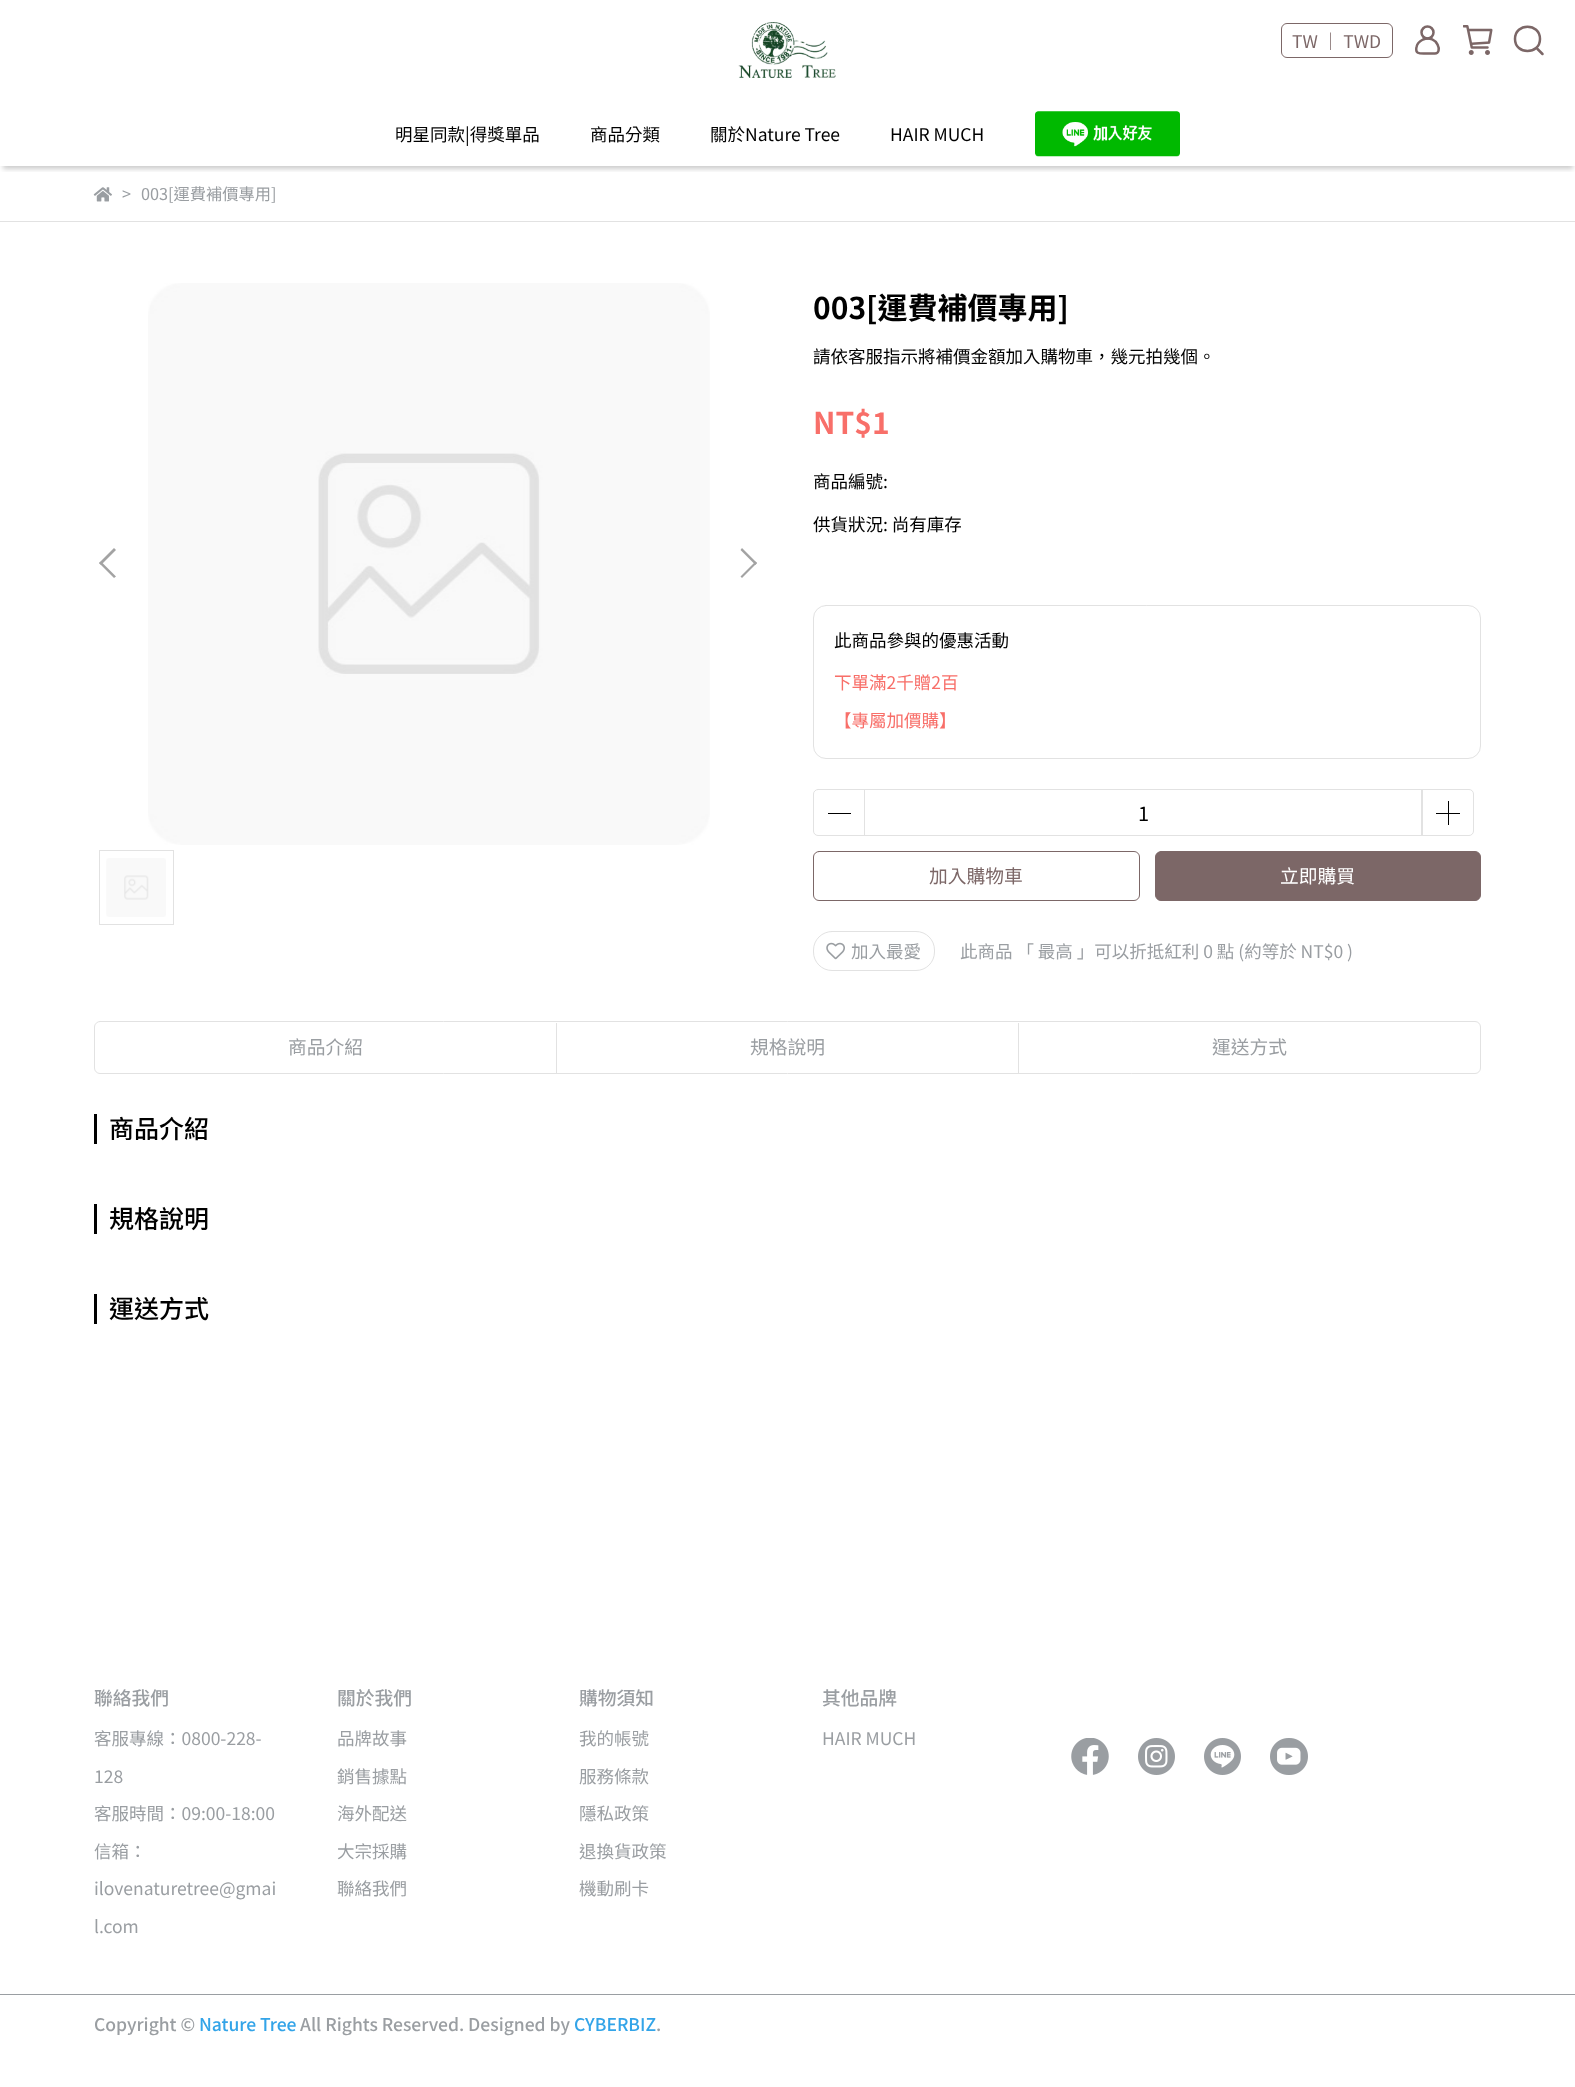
(async () => {
const canvas = document.querySelector("canvas")
canvas.width = 1575
canvas.height = 2087
const c = canvas.getContext("2d")
c.miterLimit = 4
c.fontKerning = "normal"
function T(s,x,y){c.fillText(s,x,y)}
function R(x,y,w,h){c.fillRect(x,y,w,h)}
async function I(src,x,y,w,h){const img=new Image();img.src=src;await img.decode();c.drawImage(img,x,y,w,h)}
let path
c.fillStyle="#fff"
R(0,0,1575,2087)
await I("1.png",738,22,98,56)
c.beginPath()
c.roundRect(1281.5,23.5,111,34,5.5)
c.strokeStyle="#7c6767"
c.stroke()
c.font="17.5px Noto Sans TC"
c.fillStyle="#7c6767"
T("TW ｜ TWD",1292,48)
c.beginPath()
c.arc(1427.5,32.5,6,0,7)
c.lineWidth=2.5
c.stroke()
path = new Path2D("M1434.5 53.5h-9.5c-5.5 0-10 .5-8.5-6.5c.5-3.5 3.5-6 6.5-7.5c14.5-5.5 20.5 14.5 11.5 14z")
c.stroke(path)
await I("2.png",1463,25,30,30)
path = new Path2D("M1540 39c0 16-25 16-25 0c0-16.5 25-16.5 25 0zm-2.5 10l5 5")
c.lineCap="round"
c.lineJoin="round"
c.stroke(path)
c.save()
c.beginPath()
c.rect(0,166,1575,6)
c.clip()
c.fillStyle="#00000033"
c.filter="blur(2.5px)"
c.beginPath()
c.rect(3,109,1570,60)
c.fill()
c.filter="none"
c.restore()
c.fillStyle="#000"
T("明星同款|得獎單品",395,141)
T("商品分類",590,141)
T("關於Nature Tree",710,141)
T("HAIR MUCH",890,141)
await I("3.png",1035,111,145,46)
c.fillStyle="#e2e2e2"
R(0,221,1575,1)
await I("4.png",93,187,19,15)
c.font="16.25px Noto Sans TC"
c.fillStyle="#9a9ea2"
T(">",122,200)
T("003[運費補價專用]",141,200)
c.fillStyle="#a3a3a3"
path = new Path2D("M114 578l-15-15l2-1.5l15 15z")
c.fill(path)
path = new Path2D("M101 565l-2-2l15-15l2 2z")
c.fill(path)
await I("5.png",148,283,562,562)
path = new Path2D("M742 548l15 15l-1.5 2l-15-15z")
c.fill(path)
path = new Path2D("M755.5 561.5l1.5 1.5l-15 15l-1.5-1.5z")
c.fill(path)
c.strokeStyle="#e2e2e2"
c.lineWidth=1
c.lineJoin="miter"
c.strokeRect(99.5,850.5,74,74)
await I("6.png",106,858,60,59)
c.font="bold 30px Noto Sans TC"
c.fillStyle="#000"
T("003[運費補價專用]",813,319)
c.font="17.5px Noto Sans TC"
T("請依客服指示將補價金額加入購物車，幾元拍幾個。",813,363)
c.font="bold 30px Noto Sans TC"
c.fillStyle="#f86f69"
T("NT$1",813,434)
c.font="17.5px Noto Sans TC"
c.fillStyle="#000"
T("商品編號:",813,488)
T("供貨狀況: 尚有庫存",813,531)
c.beginPath()
c.roundRect(813.5,605.5,667,153,12.5)
c.stroke()
T("此商品參與的優惠活動",834,647)
c.fillStyle="#f86f69"
T("下單滿2千贈2百",834,689)
T("【專屬加價購】",834,727)
c.beginPath()
c.roundRect(813.5,789.5,51,46,[4.5,0,0,4.5])
c.stroke()
c.fillStyle="#000"
R(828,813,23,1)
c.strokeRect(864.5,789.5,558,46)
c.font="20px Noto Sans TC"
T("1",1138,821)
c.beginPath()
c.roundRect(1421.5,789.5,52,46,[0,4.5,4.5,0])
c.stroke()
R(1436,813,24,1)
R(1448,801,1,24)
c.beginPath()
c.roundRect(813.5,851.5,326,49,5.5)
c.strokeStyle="#7c6767"
c.stroke()
c.font="18.75px Noto Sans TC"
c.fillStyle="#7c6767"
T("加入購物車",929,883)
c.beginPath()
c.roundRect(1155.5,851.5,325,49,5.5)
c.fill()
c.stroke()
c.fillStyle="#fff"
T("立即購買",1280,883)
c.beginPath()
c.roundRect(813.5,931.5,121,39,18.5)
c.strokeStyle="#e2e2e2"
c.stroke()
await I("7.png",826,942,19,18)
c.font="17.5px Noto Sans TC"
c.fillStyle="#9a9ea2"
T("加入最愛",851,958)
T("此商品 「 最高 」可以折抵紅利 0 點 (約等於 NT$0 )",960,958)
c.beginPath()
c.roundRect(94.5,1021.5,1386,52,5.5)
c.stroke()
c.font="18.75px Noto Sans TC"
T("商品介紹",288,1054)
c.fillStyle="#e2e2e2"
R(556,1023,1,50)
c.fillStyle="#9a9ea2"
T("規格說明",750,1054)
c.fillStyle="#e2e2e2"
R(1018,1023,1,50)
c.fillStyle="#9a9ea2"
T("運送方式",1212,1054)
c.fillStyle="#000"
R(94,1114,3,30)
c.font="500 25px Noto Sans TC"
T("商品介紹",109,1138)
R(94,1204,3,30)
T("規格說明",109,1228)
R(94,1294,3,30)
T("運送方式",109,1318)
c.font="500 18.75px Noto Sans TC"
c.fillStyle="#9a9ea2"
T("聯絡我們",94,1705)
c.font="17.5px Noto Sans TC"
T("客服專線：0800-228-",94,1745)
T("128",94,1783)
T("客服時間：09:00-18:00",94,1820)
T("信箱：",94,1858)
T("ilovenaturetree@gmai",94,1895)
T("l.com",94,1933)
c.font="500 18.75px Noto Sans TC"
T("關於我們",337,1705)
c.font="17.5px Noto Sans TC"
T("品牌故事",337,1745)
T("銷售據點",337,1783)
T("海外配送",337,1820)
T("大宗採購",337,1858)
T("聯絡我們",337,1895)
c.font="500 18.75px Noto Sans TC"
T("購物須知",579,1705)
c.font="17.5px Noto Sans TC"
T("我的帳號",579,1745)
T("服務條款",579,1783)
T("隱私政策",579,1820)
T("退換貨政策",579,1858)
T("機動刷卡",579,1895)
c.font="500 18.75px Noto Sans TC"
T("其他品牌",822,1705)
c.font="17.5px Noto Sans TC"
T("HAIR MUCH",822,1745)
await I("8.png",1071,1738,38,37)
await I("9.png",1138,1738,37,37)
await I("10.png",1204,1738,37,37)
await I("11.png",1270,1738,38,37)
R(0,1994,1575,1)
c.font="500 17.5px Noto Sans TC"
T("Copyright ©",94,2031)
c.fillStyle="#33a4e8"
T("Nature Tree",199,2031)
c.fillStyle="#9a9ea2"
T("All Rights Reserved. Designed by",300,2031)
c.fillStyle="#33a4e8"
T("CYBERBIZ",574,2031)
c.fillStyle="#9a9ea2"
T(".",656,2031)
})()
